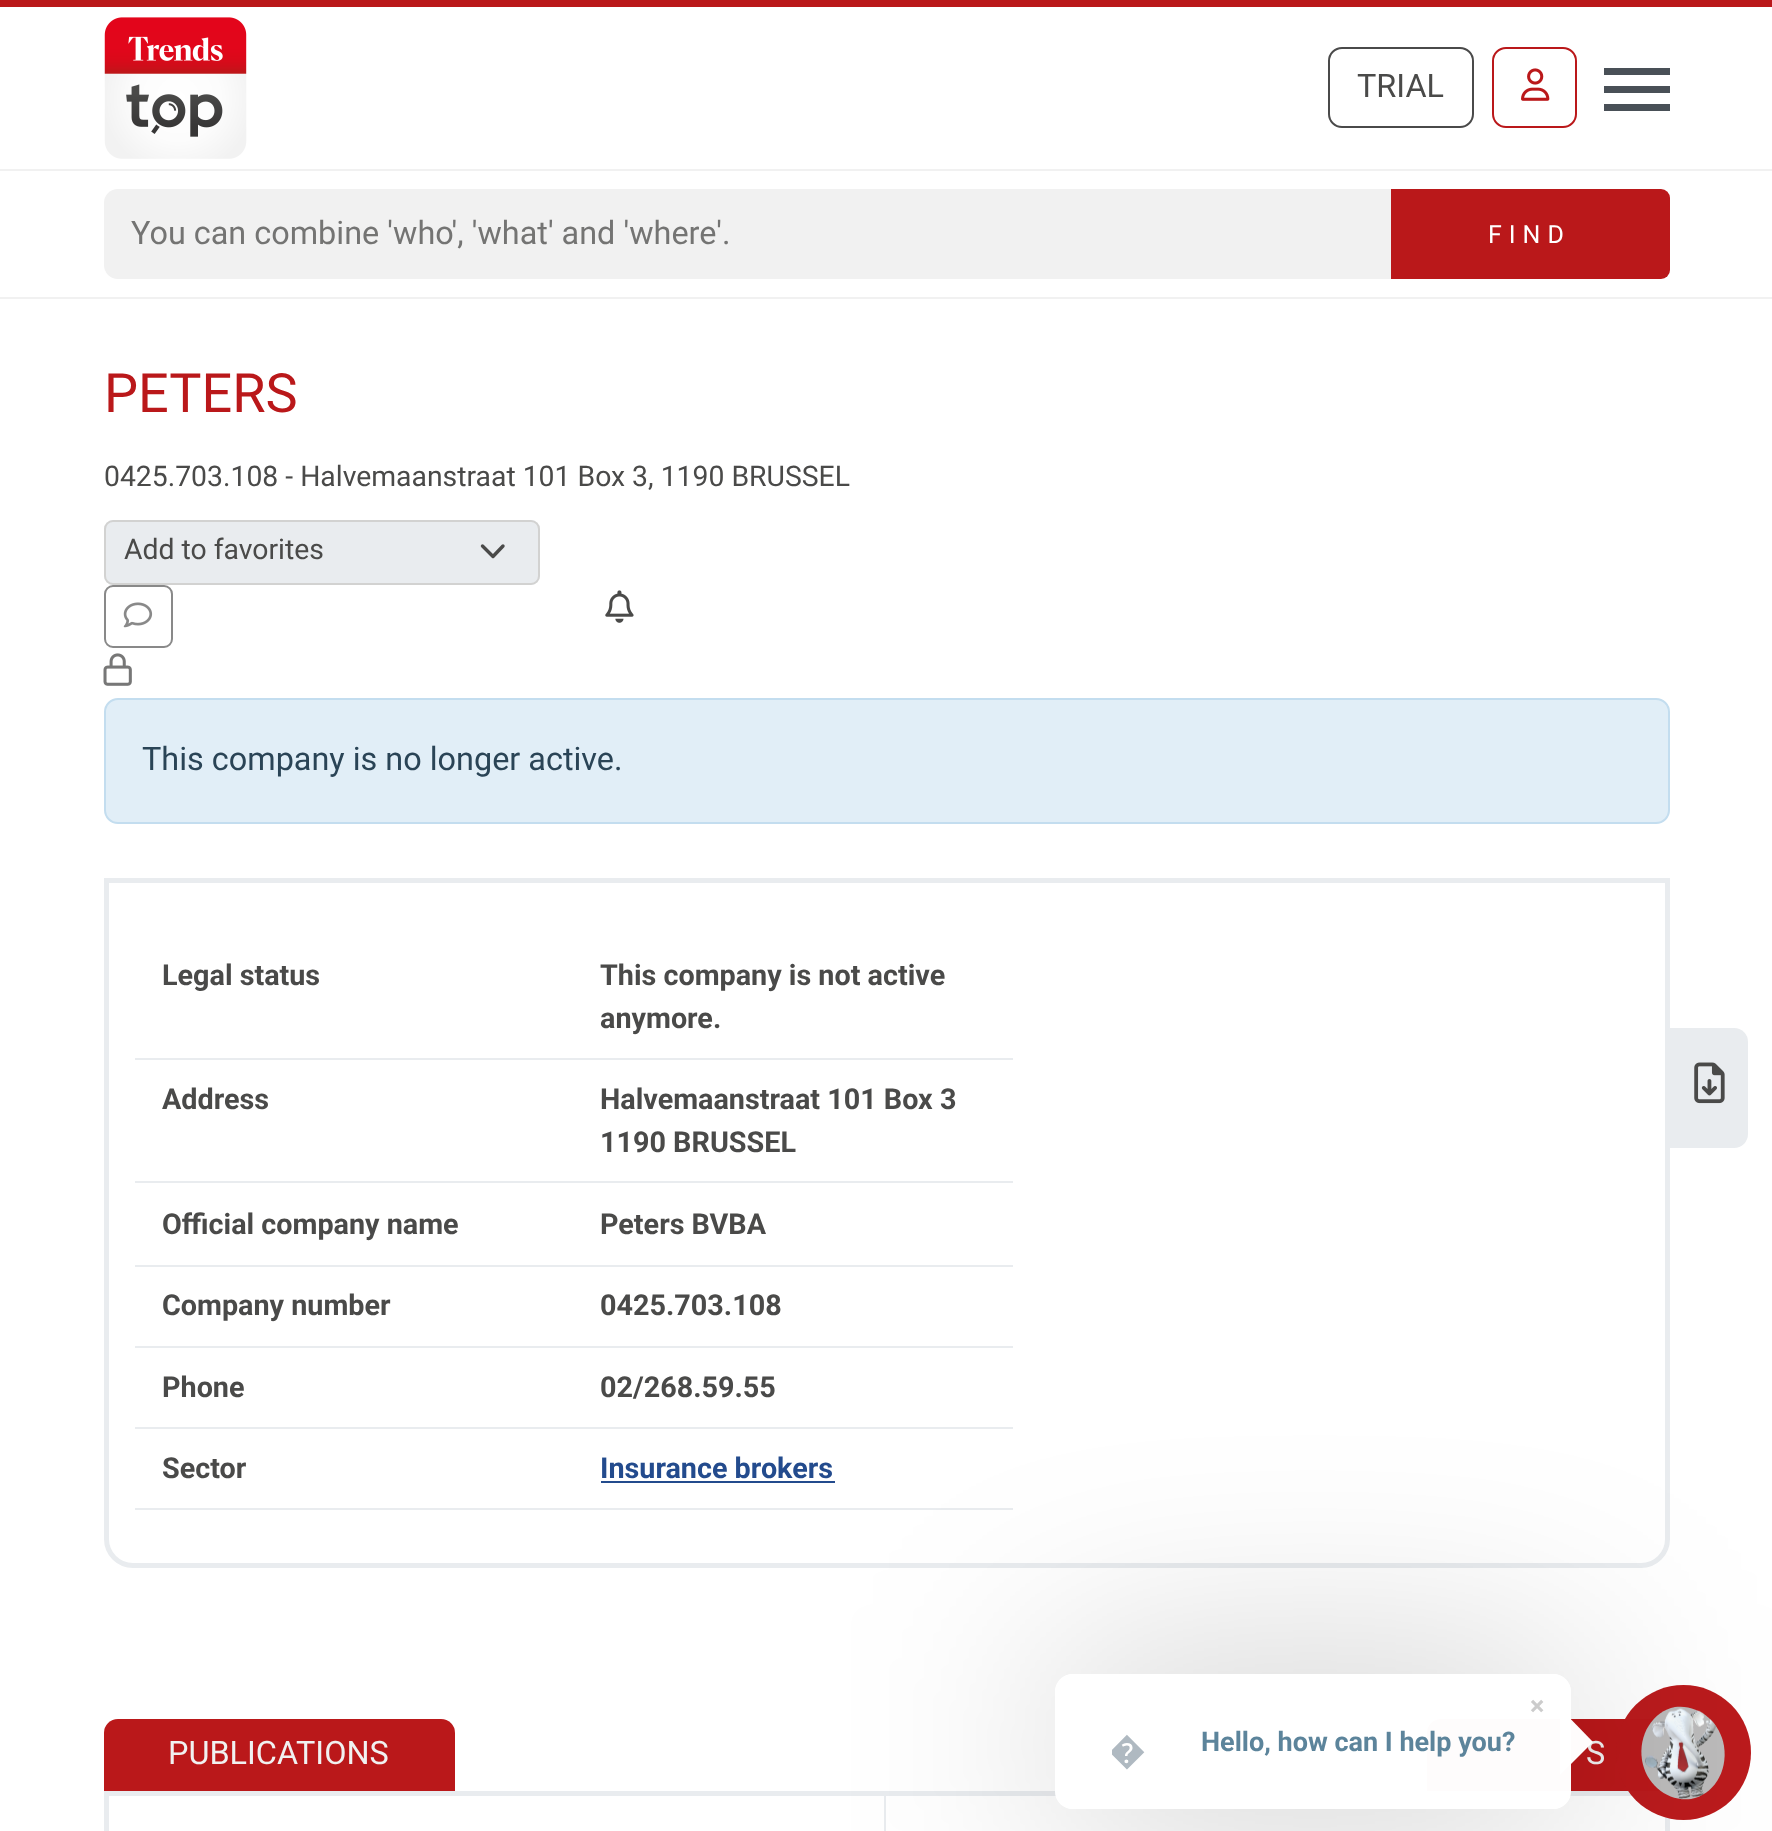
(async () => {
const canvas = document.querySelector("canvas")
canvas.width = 1772
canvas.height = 1831
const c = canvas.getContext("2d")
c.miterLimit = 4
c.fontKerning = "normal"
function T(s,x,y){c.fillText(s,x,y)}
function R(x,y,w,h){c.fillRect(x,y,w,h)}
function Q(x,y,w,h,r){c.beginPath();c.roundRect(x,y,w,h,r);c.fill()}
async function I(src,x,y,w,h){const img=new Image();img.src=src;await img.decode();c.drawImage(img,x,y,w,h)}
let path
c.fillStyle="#fff"
R(0,0,1772,1831)
c.fillStyle="#ba181a"
R(0,0,1772,7)
c.fillStyle="#f1f1f1"
R(0,297,1772,2)
await I("1.png",104,17,143,142)
c.beginPath()
c.roundRect(1329,48,144,79,13)
c.strokeStyle="#4a4a4a"
c.lineWidth=2
c.stroke()
c.font="32.4px Roboto"
c.fillStyle="#4a4a49"
T("TRIAL",1357,97)
c.beginPath()
c.roundRect(1493,48,83,79,13)
c.strokeStyle="#ba181a"
c.stroke()
await I("2.png",1521,68,29,33)
c.fillStyle="#495057"
R(1604,68,66,7)
R(1604,86,66,7)
R(1604,104,66,7)
c.fillStyle="#f1f1f1"
R(0,169,1772,2)
c.beginPath()
c.roundRect(104,189,1289,90,[14,0,0,14])
c.fill()
c.fillStyle="#747473"
T("You can combine 'who', 'what' and 'where'.",131,244)
c.fillStyle="#ba181a"
c.beginPath()
c.roundRect(1391,189,279,90,[0,9,9,0])
c.fill()
c.letterSpacing="7px"
c.font="25px Roboto"
c.fillStyle="#fff"
T("FIND",1488,243)
c.letterSpacing="0px"
c.font="54px Roboto"
c.fillStyle="#ba181a"
T("PETERS",104,412)
c.font="28.35px Roboto"
c.fillStyle="#4a4a49"
T("0425.703.108 - Halvemaanstraat 101 Box 3, 1190 BRUSSEL",104,486)
c.fillStyle="#e9ecef"
Q(104,520,436,65,9)
path = new Path2D("M482.5 546l10.5 10.5l10-10.5")
c.strokeStyle="#4a4a49"
c.lineWidth=3.4
c.lineCap="round"
c.lineJoin="round"
c.stroke(path)
c.beginPath()
c.roundRect(105,521,434,63,8)
c.strokeStyle="#d2d2d1"
c.lineWidth=2
c.lineJoin="miter"
c.stroke()
c.fillStyle="#4a4a49"
T("Add to favorites",124,559)
c.beginPath()
c.roundRect(105,586,67,61,8)
c.strokeStyle="#898989"
c.stroke()
await I("3.png",123,602,30,26)
await I("4.png",103,653,29,33)
await I("5.png",605,590,29,33)
c.fillStyle="#e1eef7"
c.beginPath()
c.roundRect(105,699,1564,124,13)
c.fill()
c.strokeStyle="#c3ddef"
c.stroke()
c.font="32.4px Roboto"
c.fillStyle="#2a4456"
T("This company is no longer active.",142,770)
c.beginPath()
c.roundRect(106.5,880.5,1561,685,[0,0,26.5,26.5])
c.strokeStyle="#e9ecef"
c.lineWidth=5
c.stroke()
c.fillStyle="#e9ecef"
R(135,1058,878,2)
c.font="bold 28.75px Roboto"
c.fillStyle="#4a4a49"
T("Legal status",162,985)
T("This company is not active",600,985)
T("anymore.",600,1028)
c.fillStyle="#e9ecef"
R(135,1181,878,2)
c.fillStyle="#4a4a49"
T("Address",162,1109)
T("Halvemaanstraat 101 Box 3",600,1109)
T("1190 BRUSSEL",600,1152)
c.fillStyle="#e9ecef"
R(135,1265,878,2)
c.fillStyle="#4a4a49"
T("Official company name",162,1234)
T("Peters BVBA",600,1234)
c.fillStyle="#e9ecef"
R(135,1346,878,2)
c.fillStyle="#4a4a49"
T("Company number",162,1315)
T("0425.703.108",600,1315)
c.fillStyle="#e9ecef"
R(135,1427,878,2)
c.fillStyle="#4a4a49"
T("Phone",162,1397)
T("02/268.59.55",600,1397)
c.fillStyle="#e9ecef"
R(135,1508,878,2)
c.fillStyle="#4a4a49"
T("Sector",162,1478)
c.fillStyle="#234b8d"
T("Insurance brokers",600,1478)
R(601,1481,234,2)
c.fillStyle="#e9ecef"
c.beginPath()
c.roundRect(1670,1028,78,120,[0,14,14,0])
c.fill()
await I("6.png",1694,1062,31,42)
c.fillStyle="#ba181a"
c.beginPath()
c.roundRect(104,1719,351,72,[14,14,0,0])
c.fill()
c.font="32.4px Roboto"
c.fillStyle="#f1f1f1"
T("PUBLICATIONS",168,1764)
c.fillStyle="#ba181a"
c.beginPath()
c.roundRect(1427,1719,243,72,[14,14,0,0])
c.fill()
c.fillStyle="#f1f1f1"
T("S",1586,1764)
path = new Path2D("M106.5 1793.5h1549.5c6.5 0 11.5 5 11.5 11.5v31c0 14.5-12 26.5-26.5 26.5h-1508c-14.5 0-26.5-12-26.5-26.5z")
c.stroke(path)
c.fillStyle="#e9ecef"
R(884,1796,2,35)
c.fillStyle="#ba181afc"
c.beginPath()
c.arc(1683.5,1752.5,67.5,0,7)
c.fill()
c.fillStyle="#bcbbbb"
path = new Path2D("M1675 1707c23-3 45 14 49 39c4 26-11 49-33 53c-23 3-45-14-49-39c-4-25 11-49 33-53z")
c.fill(path)
await I("7.png",1645,1708,71,91)
c.save()
path = new Path2D("M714 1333h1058v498h-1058zm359 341h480c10 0 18 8 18 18v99c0 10-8 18-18 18h-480c-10 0-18-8-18-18v-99c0-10 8-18 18-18z")
c.clip(path,"evenodd")
c.fillStyle="#00000038"
c.filter="blur(112.5px)"
c.beginPath()
c.roundRect(1053,1672,524,144,23)
c.fill()
c.filter="none"
c.restore()
c.fillStyle="#fffffffc"
Q(1055,1674,516,135,18)
c.font="bold 27px Roboto"
c.fillStyle="#ccc"
T("×",1530,1715)
c.save()
c.beginPath()
c.rect(1112,1685,90,113)
c.clip()
c.font="bold 36px Noto Color Emoji"
c.fillStyle="#afb9c1"
T("�",1109,1763)
c.restore()
c.fillStyle="#5c849b"
T("Hello, how can I help you?",1201,1751)
c.fillStyle="#fffffffc"
path = new Path2D("M1560 1775v-67l33 34z")
c.fill(path)
})()
